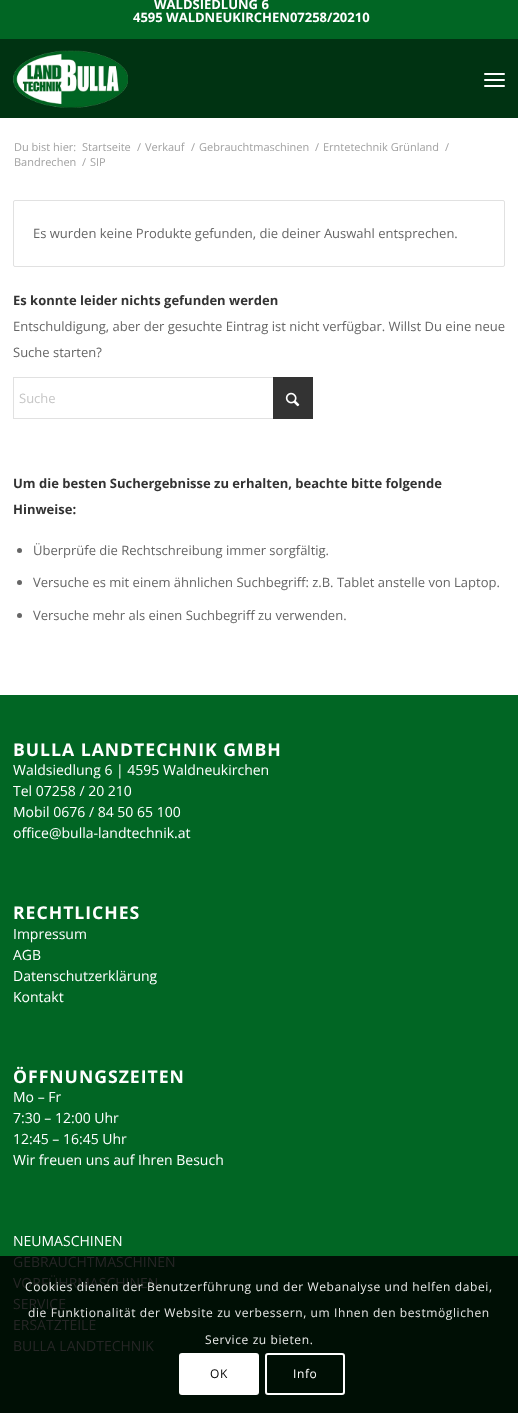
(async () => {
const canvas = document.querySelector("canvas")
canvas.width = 518
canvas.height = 1413
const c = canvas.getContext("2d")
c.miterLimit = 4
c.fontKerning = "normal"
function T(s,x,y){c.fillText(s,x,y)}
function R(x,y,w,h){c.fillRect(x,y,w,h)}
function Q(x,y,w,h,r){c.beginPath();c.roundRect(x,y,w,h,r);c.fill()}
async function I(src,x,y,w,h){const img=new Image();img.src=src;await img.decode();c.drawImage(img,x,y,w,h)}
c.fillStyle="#fff"
R(0,0,518,1413)
c.fillStyle="#016624"
R(0,0,518,39)
c.font="bold 13px Open Sans"
c.fillStyle="#fff"
T("WALDSIEDLUNG 6",154,9)
T("4595 WALDNEUKIRCHEN07258/20210",133,22)
c.fillStyle="#003312"
R(0,39,518,79)
await I("1.png",13,50,115,58)
c.fillStyle="#fff"
Q(484,79,21,2,1)
Q(484,73,21,2,1)
Q(484,85,21,2,1)
c.font="11px Open Sans"
c.fillStyle="#a2a2a2"
T("Du bist hier:",14,151)
T("Startseite",82,151)
T("/",137,151)
T("Verkauf",145,151)
T("/",191,151)
T("Gebrauchtmaschinen",199,151)
T("/",315,151)
T("Erntetechnik Grünland",323,151)
T("/",445,151)
T("Bandrechen",14,166)
T("/",82,166)
T("SIP",90,166)
c.beginPath()
c.roundRect(13.5,200.5,491,66,1.5)
c.strokeStyle="#e1e1e1"
c.stroke()
c.font="13px Open Sans"
c.fillStyle="#666"
T("Es wurden keine Produkte gefunden, die deiner Auswahl entsprechen.",33,238)
c.font="bold 13px Open Sans"
c.fillStyle="#333"
T("Es konnte leider nichts gefunden werden",13,305)
c.font="13px Open Sans"
c.fillStyle="#666"
T("Entschuldigung, aber der gesuchte Eintrag ist nicht verfügbar. Willst Du eine neue",13,331)
T("Suche starten?",13,357)
c.strokeRect(13.5,377.5,299,41)
c.fillStyle="#333"
R(273,377,40,42)
c.fillStyle="#c6c6c6"
T("Suche",19,403)
await I("2.png",285,392,15,15)
c.font="bold 13px Open Sans"
c.fillStyle="#333"
T("Um die besten Suchergebnisse zu erhalten, beachte bitte folgende",13,488)
T("Hinweise:",13,514)
c.fillStyle="#666"
c.beginPath()
c.arc(19.5,550.5,2.5,0,7)
c.fill()
c.font="13px Open Sans"
T("Überprüfe die Rechtschreibung immer sorgfältig.",33,555)
c.beginPath()
c.arc(19.5,582.5,2.5,0,7)
c.fill()
T("Versuche es mit einem ähnlichen Suchbegriff: z.B. Tablet anstelle von Laptop.",33,587)
c.beginPath()
c.arc(19.5,615.5,2.5,0,7)
c.fill()
T("Versuche mehr als einen Suchbegriff zu verwenden.",33,620)
c.fillStyle="#016624"
R(0,695,518,561)
c.fillStyle="#000f05"
R(0,1256,518,157)
c.letterSpacing="1px"
c.font="bold 17.6px Open Sans"
c.fillStyle="#fff"
T("BULLA LANDTECHNIK GMBH",13,756)
c.letterSpacing="0px"
c.font="14px Open Sans"
T("Waldsiedlung 6 | 4595 Waldneukirchen",13,775)
T("Tel 07258 / 20 210",13,796)
T("Mobil 0676 / 84 50 65 100",13,817)
T("office@bulla-landtechnik.at",13,838)
c.letterSpacing="1px"
c.font="bold 17.6px Open Sans"
T("RECHTLICHES",13,919)
c.letterSpacing="0px"
c.font="14px Open Sans"
T("Impressum",13,939)
T("AGB",13,960)
T("Datenschutzerklärung",13,981)
T("Kontakt",13,1002)
c.letterSpacing="1px"
c.font="bold 17.6px Open Sans"
T("ÖFFNUNGSZEITEN",13,1083)
c.letterSpacing="0px"
c.font="14px Open Sans"
T("Mo – Fr",13,1102)
T("7:30 – 12:00 Uhr",13,1123)
T("12:45 – 16:45 Uhr",13,1144)
T("Wir freuen uns auf Ihren Besuch",13,1165)
T("NEUMASCHINEN",13,1246)
c.fillStyle="#262626"
T("GEBRAUCHTMASCHINEN",13,1267)
T("VORFÜHRMASCHINEN",13,1288)
T("SERVICE",13,1309)
T("ERSATZTEILE",13,1330)
T("BULLA LANDTECHNIK",13,1351)
c.letterSpacing="0.6px"
c.font="12px Open Sans"
c.fillStyle="#e6e7e6"
T("Cookies dienen der Benutzerführung und der Webanalyse und helfen dabei,",25,1291)
T("die Funktionalität der Website zu verbessern, um Ihnen den bestmöglichen",28,1317)
T("Service zu bieten.",205,1344)
c.fillStyle="#fff"
Q(179,1353,80,42,3)
c.fillStyle="#000"
T("OK",210,1378)
c.beginPath()
c.roundRect(266,1354,78,40,2)
c.strokeStyle="#fff"
c.lineWidth=2
c.stroke()
c.fillStyle="#fff"
T("Info",293,1378)
})()
